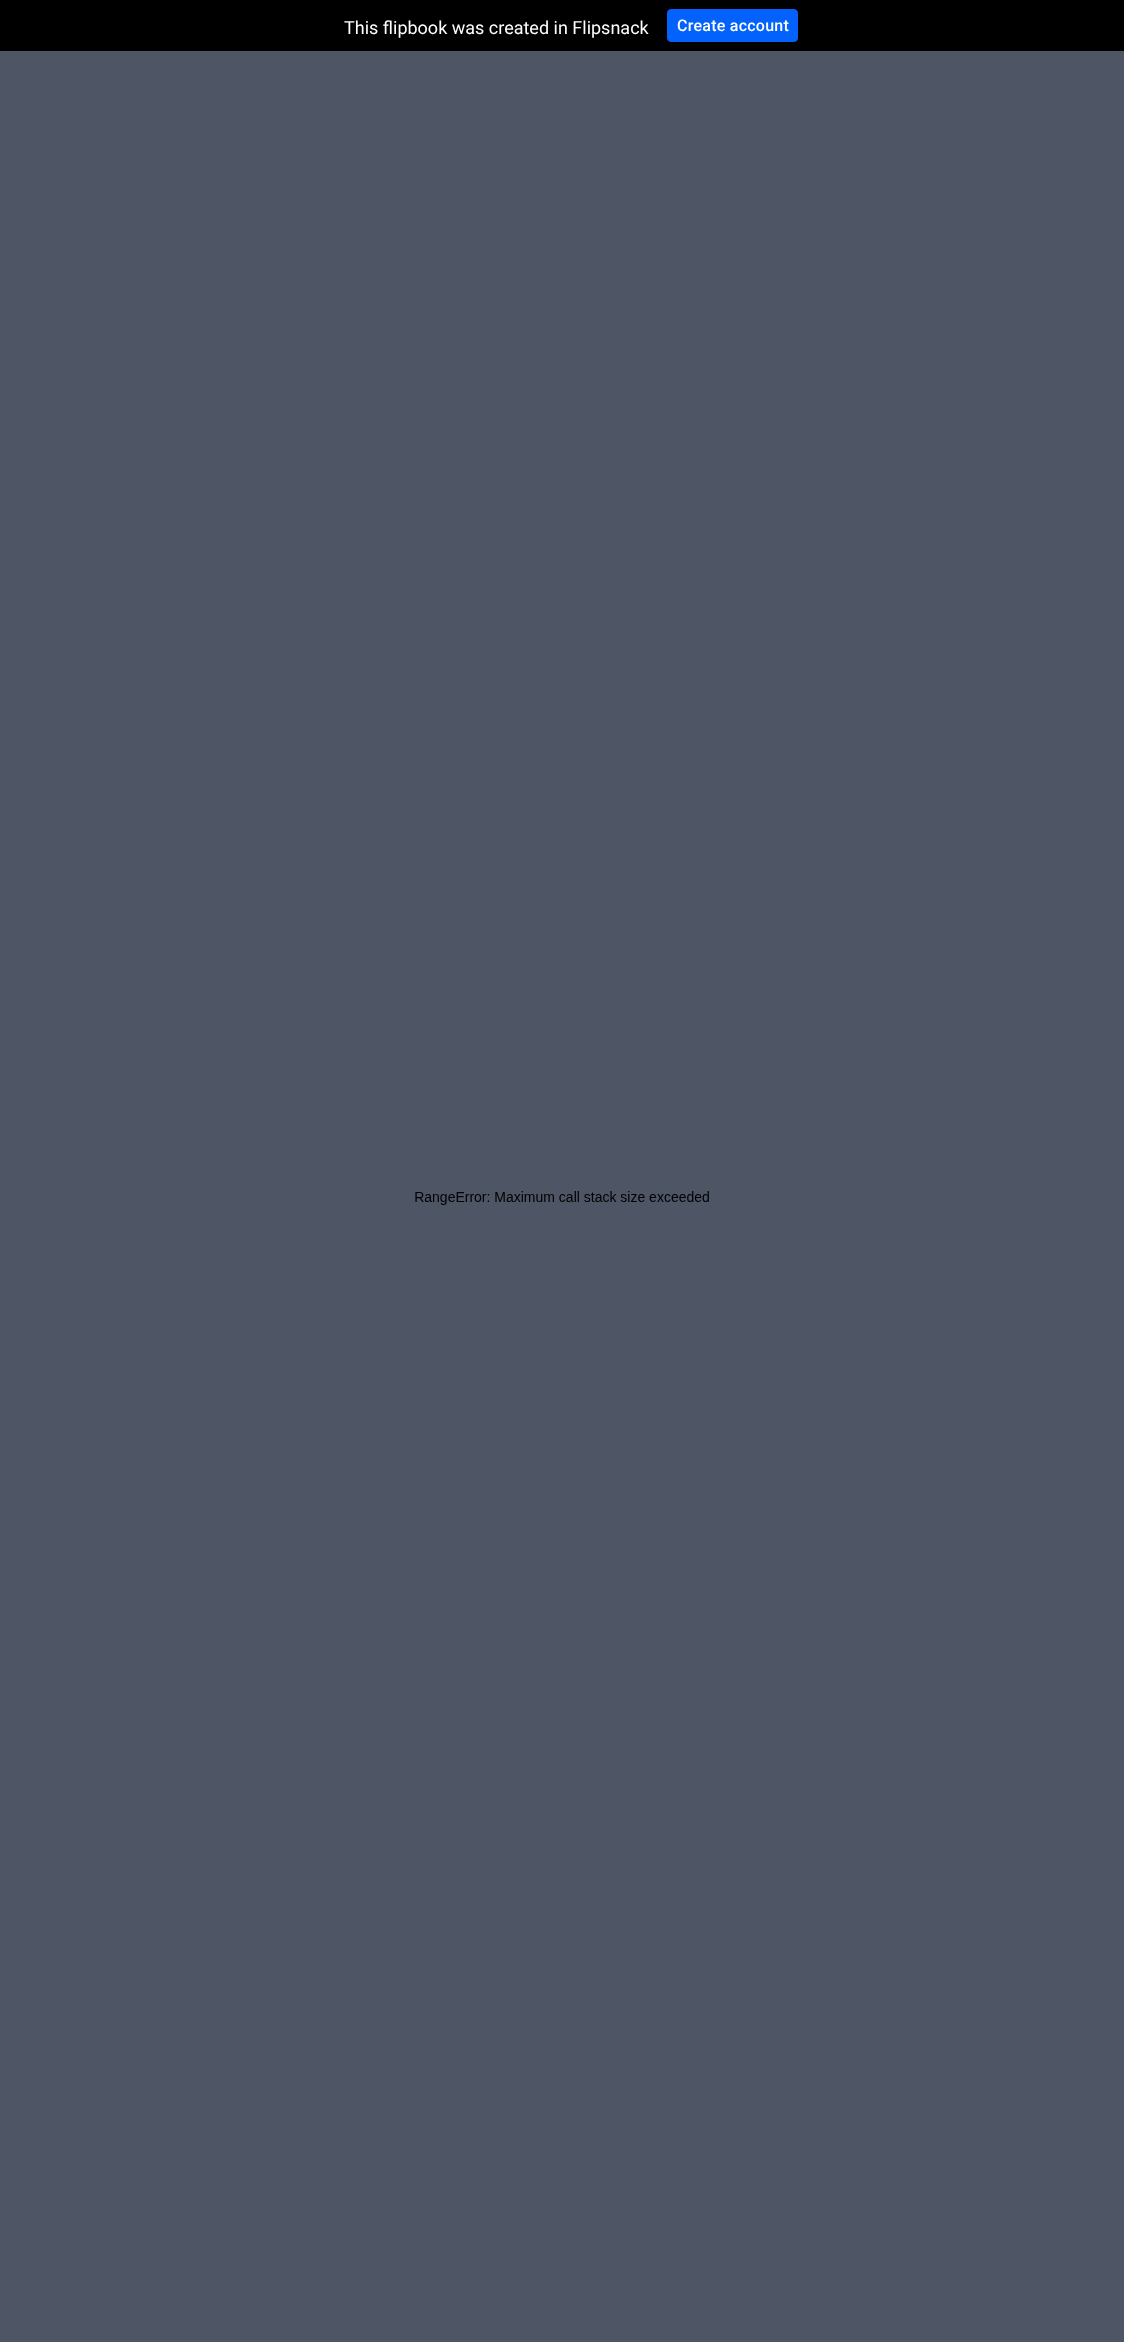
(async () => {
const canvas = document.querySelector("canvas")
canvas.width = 1124
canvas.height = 2342
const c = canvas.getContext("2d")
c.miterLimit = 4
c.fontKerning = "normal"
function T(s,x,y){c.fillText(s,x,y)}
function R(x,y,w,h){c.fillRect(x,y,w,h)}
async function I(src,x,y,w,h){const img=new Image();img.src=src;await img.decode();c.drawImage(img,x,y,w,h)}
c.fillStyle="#000"
R(0,0,1124,2342)
c.font="18px Roboto"
c.fillStyle="#fff"
T("This flipbook was created in Flipsnack",344,34)
c.fillStyle="#0362fc"
c.beginPath()
c.roundRect(667.5,9.5,130,32,3.5)
c.fill()
c.strokeStyle="#0362fc"
c.stroke()
c.letterSpacing="0.25px"
c.font="500 16px Roboto"
c.fillStyle="#fff"
T("Create account",677,31)
c.fillStyle="#4e5565"
R(0,51,1124,2291)
await I("1.png",415,1191,294,14)
})()
